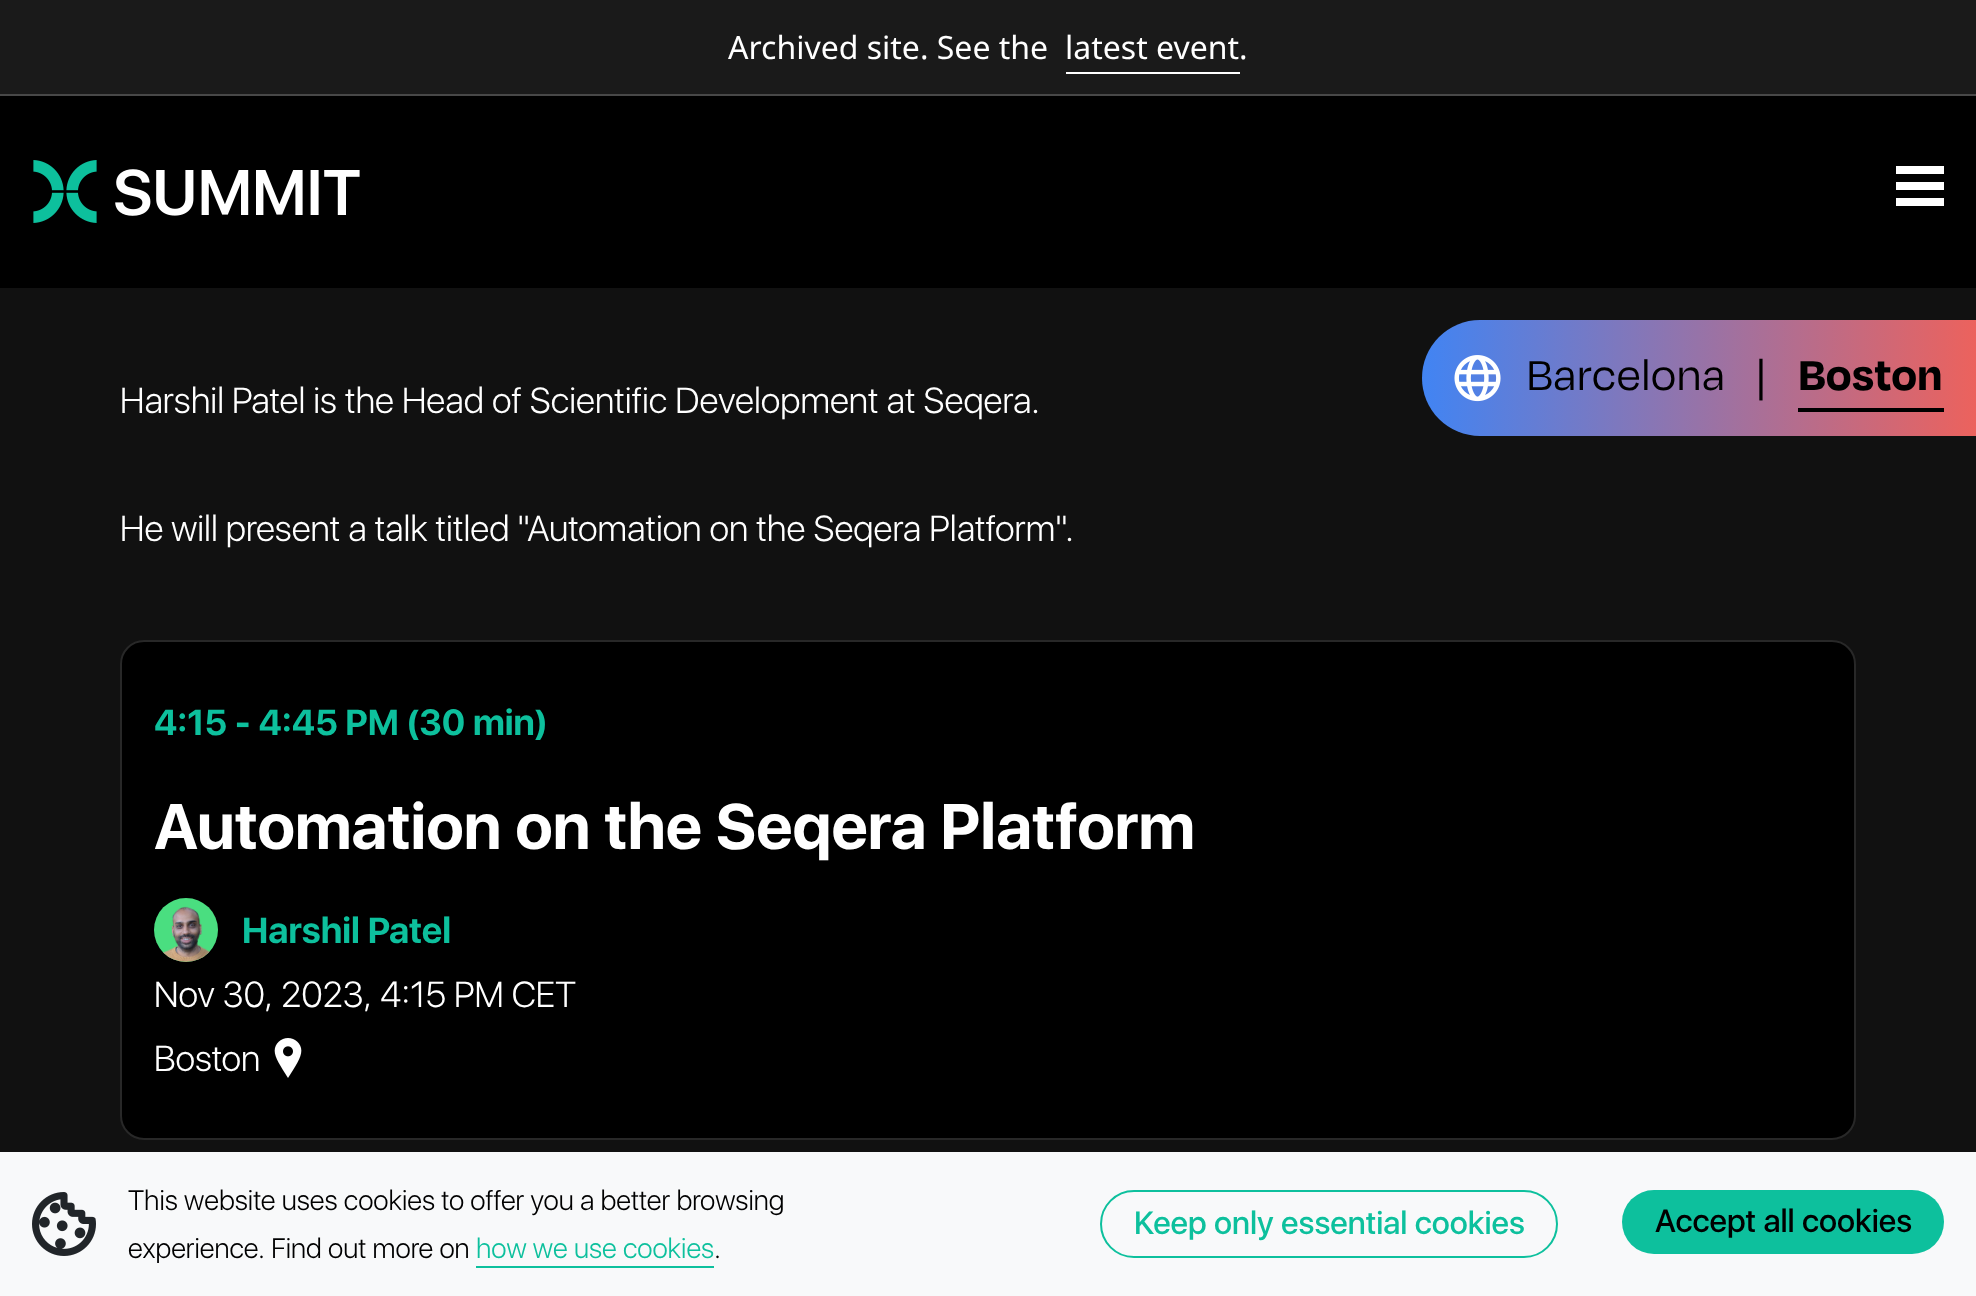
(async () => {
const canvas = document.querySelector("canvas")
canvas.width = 1976
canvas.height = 1296
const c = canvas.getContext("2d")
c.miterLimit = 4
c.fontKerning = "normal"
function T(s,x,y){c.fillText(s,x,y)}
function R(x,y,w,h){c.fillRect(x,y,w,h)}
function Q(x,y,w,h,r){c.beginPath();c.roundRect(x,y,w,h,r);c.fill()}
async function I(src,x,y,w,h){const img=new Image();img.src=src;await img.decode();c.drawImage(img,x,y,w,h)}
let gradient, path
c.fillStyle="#111"
R(0,0,1976,1296)
c.fillStyle="#000"
R(0,96,1976,192)
c.fillStyle="#1a1a1a"
R(0,0,1976,94)
c.fillStyle="#484848"
R(0,94,1976,2)
c.font="32px Noto Sans"
c.fillStyle="#fff"
T("Archived site. See the",728,59)
T("latest event.",1065,59)
R(1066,72,174,2)
await I("1.png",33,160,327,63)
path = new Path2D("M1944 174h-48v-8h48zm0 8h-48v8h48zm0 16h-48v8h48z")
c.fill(path,"evenodd")
gradient = c.createLinearGradient(1422,378,1976,378)
gradient.addColorStop(0,"#4184f3")
gradient.addColorStop(1,"#ec625d")
c.fillStyle = gradient
c.beginPath()
c.roundRect(1422,320,554,116,[58,0,0,58])
c.fill()
await I("2.png",1454,355,47,47)
c.font="48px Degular"
c.fillStyle="#000"
T("Barcelona",1526,390)
T("|",1756,392)
R(1798,408,146,4)
c.font="bold 48px Degular"
T("Boston",1798,390)
c.font="300 36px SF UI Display"
c.fillStyle="#fff"
T("Harshil Patel is the Head of Scientific Development at Seqera.",120,413)
T("He will present a talk titled \"Automation on the Seqera Platform\".",120,541)
c.fillStyle="#000"
c.beginPath()
c.roundRect(121,641,1734,498,23)
c.fill()
c.strokeStyle="#282828"
c.lineWidth=2
c.stroke()
c.font="bold 36px SF UI Display"
c.fillStyle="#0dc09d"
T("4:15 - 4:45 PM (30 min)",154,735)
c.font="bold 64px SF UI Display"
c.fillStyle="#fff"
T("Automation on the Seqera Platform",154,849)
c.fillStyle="#4ade80"
c.beginPath()
c.arc(186,930,32,0,7)
c.fill()
await I("3.png",163,906,47,56)
c.font="bold 36px SF UI Display"
c.fillStyle="#0dc09d"
T("Harshil Patel",242,943)
c.font="300 36px SF UI Display"
c.fillStyle="#fff"
T("Nov 30, 2023, 4:15 PM CET",154,1007)
T("Boston",154,1071)
await I("4.png",274,1038,28,40)
c.fillStyle="#f8f9fa"
R(0,1152,1976,144)
await I("5.png",32,1192,64,64)
c.font="300 28px SF UI Display"
c.fillStyle="#000"
T("This website uses cookies to offer you a better browsing",128,1210)
T("experience. Find out more on",128,1258)
c.fillStyle="#0dc09d"
T("how we use cookies",476,1258)
R(476,1266,238,2)
c.fillStyle="#000"
T(".",714,1258)
c.beginPath()
c.roundRect(1101,1191,456,66,33)
c.strokeStyle="#0dc09d"
c.stroke()
c.font="500 32px SF UI Display"
c.fillStyle="#0dc09d"
T("Keep only essential cookies",1134,1234)
Q(1622,1190,322,64,32)
c.fillStyle="#000"
T("Accept all cookies",1655,1232)
})()
